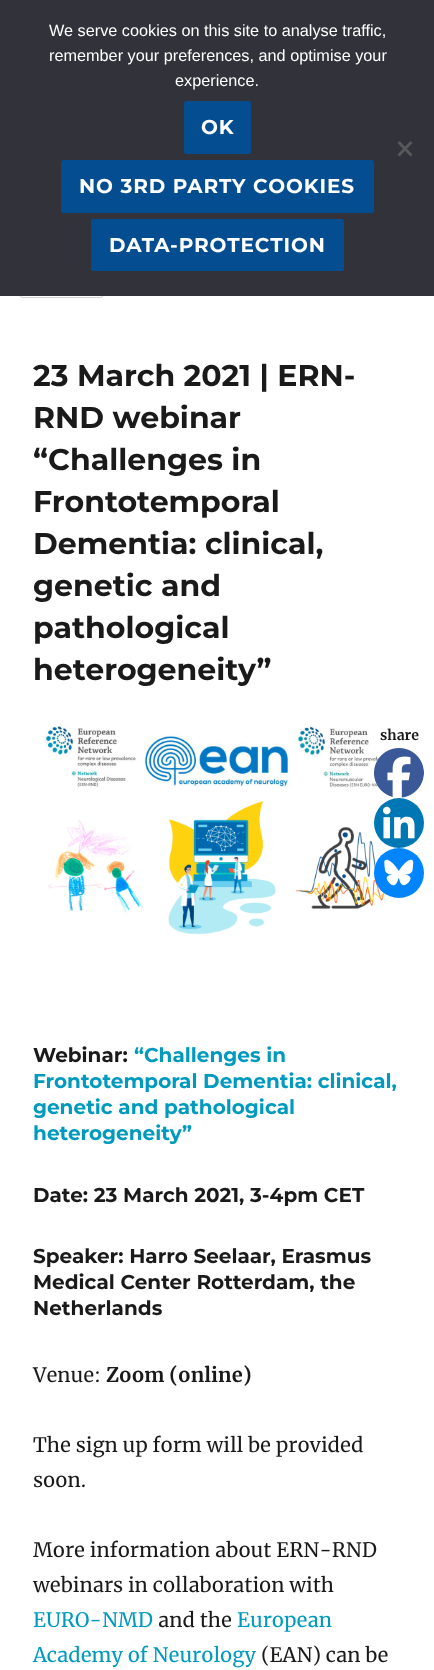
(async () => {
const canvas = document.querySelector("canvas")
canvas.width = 434
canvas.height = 1670
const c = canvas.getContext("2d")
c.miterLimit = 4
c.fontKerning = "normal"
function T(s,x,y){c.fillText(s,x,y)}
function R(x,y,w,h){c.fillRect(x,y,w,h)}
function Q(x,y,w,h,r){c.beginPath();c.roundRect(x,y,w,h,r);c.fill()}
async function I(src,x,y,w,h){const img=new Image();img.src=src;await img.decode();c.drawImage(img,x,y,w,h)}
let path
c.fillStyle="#fff"
R(0,0,434,1670)
c.beginPath()
c.roundRect(20.5,254.5,82,43,2)
c.strokeStyle="#d1d1d1"
c.stroke()
c.fillStyle="#32323a"
R(0,0,434,296)
c.font="16.25px Liberation Sans"
c.fillStyle="#fff"
T("We serve cookies on this site to analyse traffic,",49,36)
T("remember your preferences, and optimise your",49,61)
T("experience.",175,86)
c.fillStyle="#034d90"
Q(184,101,67,53,2.5)
c.letterSpacing="0.9px"
c.font="100 20px Montserrat"
c.fillStyle="#fff"
T("OK",201,134)
c.fillStyle="#034d90"
Q(61,160,313,53,2.5)
c.fillStyle="#fff"
T("NO 3RD PARTY COOKIES",79,193)
c.fillStyle="#034d90"
Q(91,219,253,52,2.5)
c.fillStyle="#fff"
T("DATA-PROTECTION",109,252)
c.fillStyle="#59595d"
path = new Path2D("M410.5 141l2 2l-13 13.5l-2-2z")
c.fill(path)
path = new Path2D("M397.5 143l2-2l13 13.5l-2 2z")
c.fill(path)
c.letterSpacing="0px"
c.font="100 30px Montserrat"
c.fillStyle="#1a1a1a"
T("23 March 2021 | ERN-",33,386)
T("RND webinar",33,428)
T("“Challenges in",33,470)
T("Frontotemporal",33,512)
T("Dementia: clinical,",33,554)
T("genetic and",33,596)
T("pathological",33,638)
T("heterogeneity”",33,680)
await I("1.png",44,725,347,210)
c.font="bold 14px Merriweather"
T("share",380,740)
c.fillStyle="#fff"
c.beginPath()
c.arc(399,773,25,0,7)
c.fill()
await I("2.png",374,748,50,50)
c.fillStyle="#0077b5"
c.beginPath()
c.arc(399,823,25,0,7)
c.fill()
await I("3.png",383,806,32,33)
c.fillStyle="#0085ff"
c.beginPath()
c.arc(399,873,25,0,7)
c.fill()
await I("4.png",384,859,30,27)
c.font="100 20px Montserrat"
c.fillStyle="#1a1a1a"
T("Webinar:",33,1062)
c.fillStyle="#009abf"
T("“Challenges in",134,1062)
T("Frontotemporal Dementia: clinical,",33,1088)
T("genetic and pathological",33,1114)
T("heterogeneity”",33,1140)
c.fillStyle="#1a1a1a"
T("Date: 23 March 2021, 3-4pm CET",33,1202)
T("Speaker: Harro Seelaar, Erasmus",33,1263)
T("Medical Center Rotterdam, the",33,1289)
T("Netherlands",33,1315)
c.font="20px Merriweather"
T("Venue:",33,1382)
c.font="bold 20px Merriweather"
T("Zoom (online)",106,1382)
c.font="20px Merriweather"
T("The sign up form will be provided",33,1452)
T("soon.",33,1487)
T("More information about ERN-RND",33,1557)
T("webinars in collaboration with",33,1592)
c.fillStyle="#009abf"
T("EURO-NMD",33,1627)
c.fillStyle="#1a1a1a"
T("and the",158,1627)
c.fillStyle="#009abf"
T("European",237,1627)
T("Academy of Neurology",33,1662)
c.fillStyle="#1a1a1a"
T("(EAN) can be",261,1662)
})()
